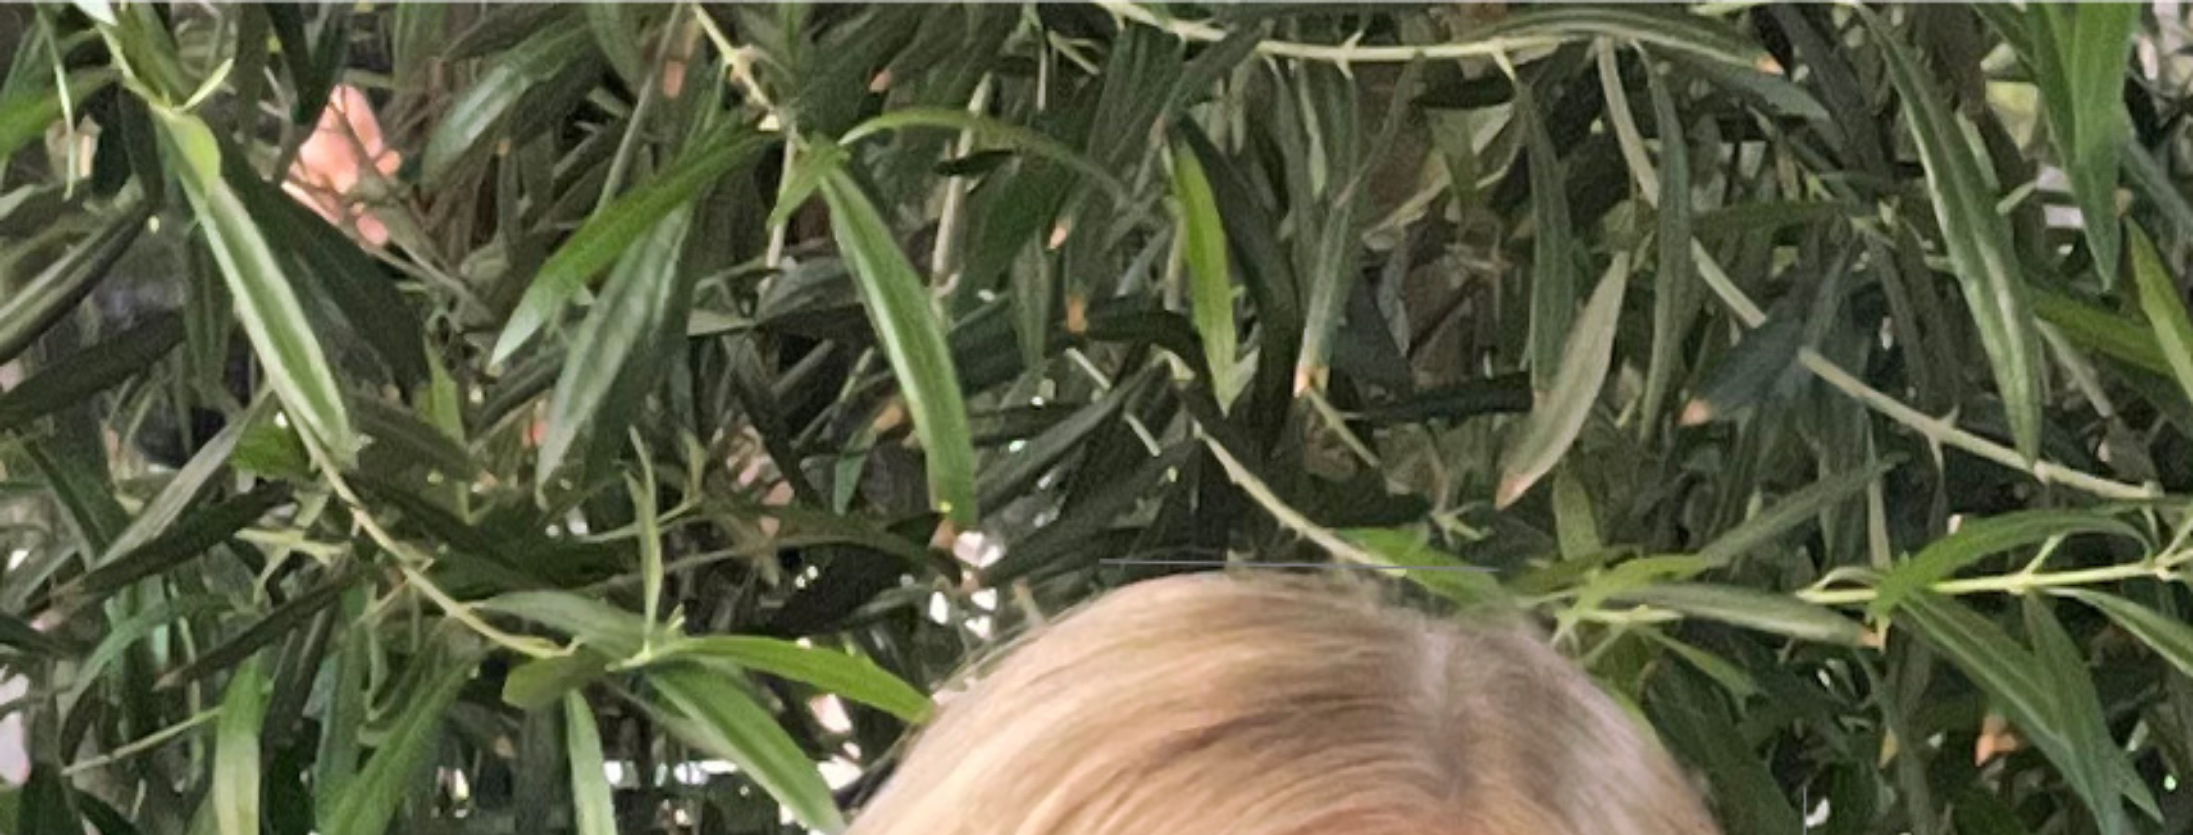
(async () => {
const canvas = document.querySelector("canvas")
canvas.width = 2193
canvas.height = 835
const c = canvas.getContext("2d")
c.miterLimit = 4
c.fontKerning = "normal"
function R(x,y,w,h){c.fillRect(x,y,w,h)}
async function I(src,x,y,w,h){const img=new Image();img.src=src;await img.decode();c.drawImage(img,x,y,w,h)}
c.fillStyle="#fff"
R(0,0,2193,835)
await I("1.png",0,0,2193,835)
})()
